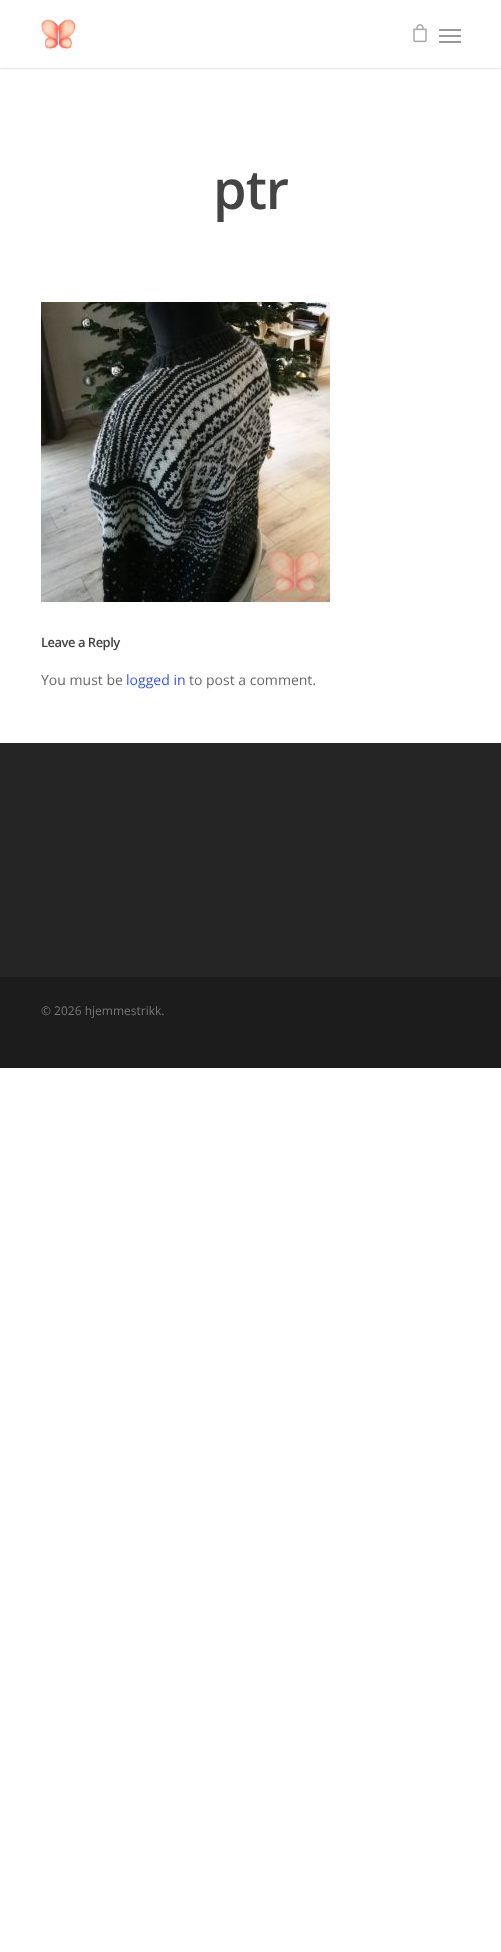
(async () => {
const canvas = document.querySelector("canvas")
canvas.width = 501
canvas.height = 1952
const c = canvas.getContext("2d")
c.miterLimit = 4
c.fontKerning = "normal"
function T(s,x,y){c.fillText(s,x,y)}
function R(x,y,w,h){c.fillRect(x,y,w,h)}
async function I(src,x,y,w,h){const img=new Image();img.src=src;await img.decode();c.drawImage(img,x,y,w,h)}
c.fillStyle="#fff"
R(0,0,501,1952)
c.save()
c.beginPath()
c.rect(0,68,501,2)
c.clip()
c.fillStyle="#00000038"
c.filter="blur(1.5px)"
c.beginPath()
c.rect(0,0,501,68)
c.fill()
c.filter="none"
c.restore()
await I("1.png",41,19,35,30)
await I("2.png",413,24,14,19)
c.fillStyle="#999"
R(439,29,22,2)
R(439,41,22,2)
R(439,35,22,2)
c.letterSpacing="-1px"
c.font="600 54px Open Sans"
c.fillStyle="#444"
T("ptr",213,209)
await I("3.png",41,302,289,300)
c.letterSpacing="-0.5px"
c.font="600 13px Open Sans"
T("Leave a Reply",41,647)
c.letterSpacing="0px"
c.font="14px Open Sans"
c.fillStyle="#676767"
T("You must be",41,685)
c.fillStyle="#3452ff"
T("logged in",126,685)
c.fillStyle="#676767"
T("to post a comment.",189,685)
c.fillStyle="#252525"
R(0,743,501,234)
c.fillStyle="#1c1c1c"
R(0,977,501,91)
c.font="12px Open Sans"
c.fillStyle="#777"
T("© 2026 hjemmestrikk.",41,1015)
})()
